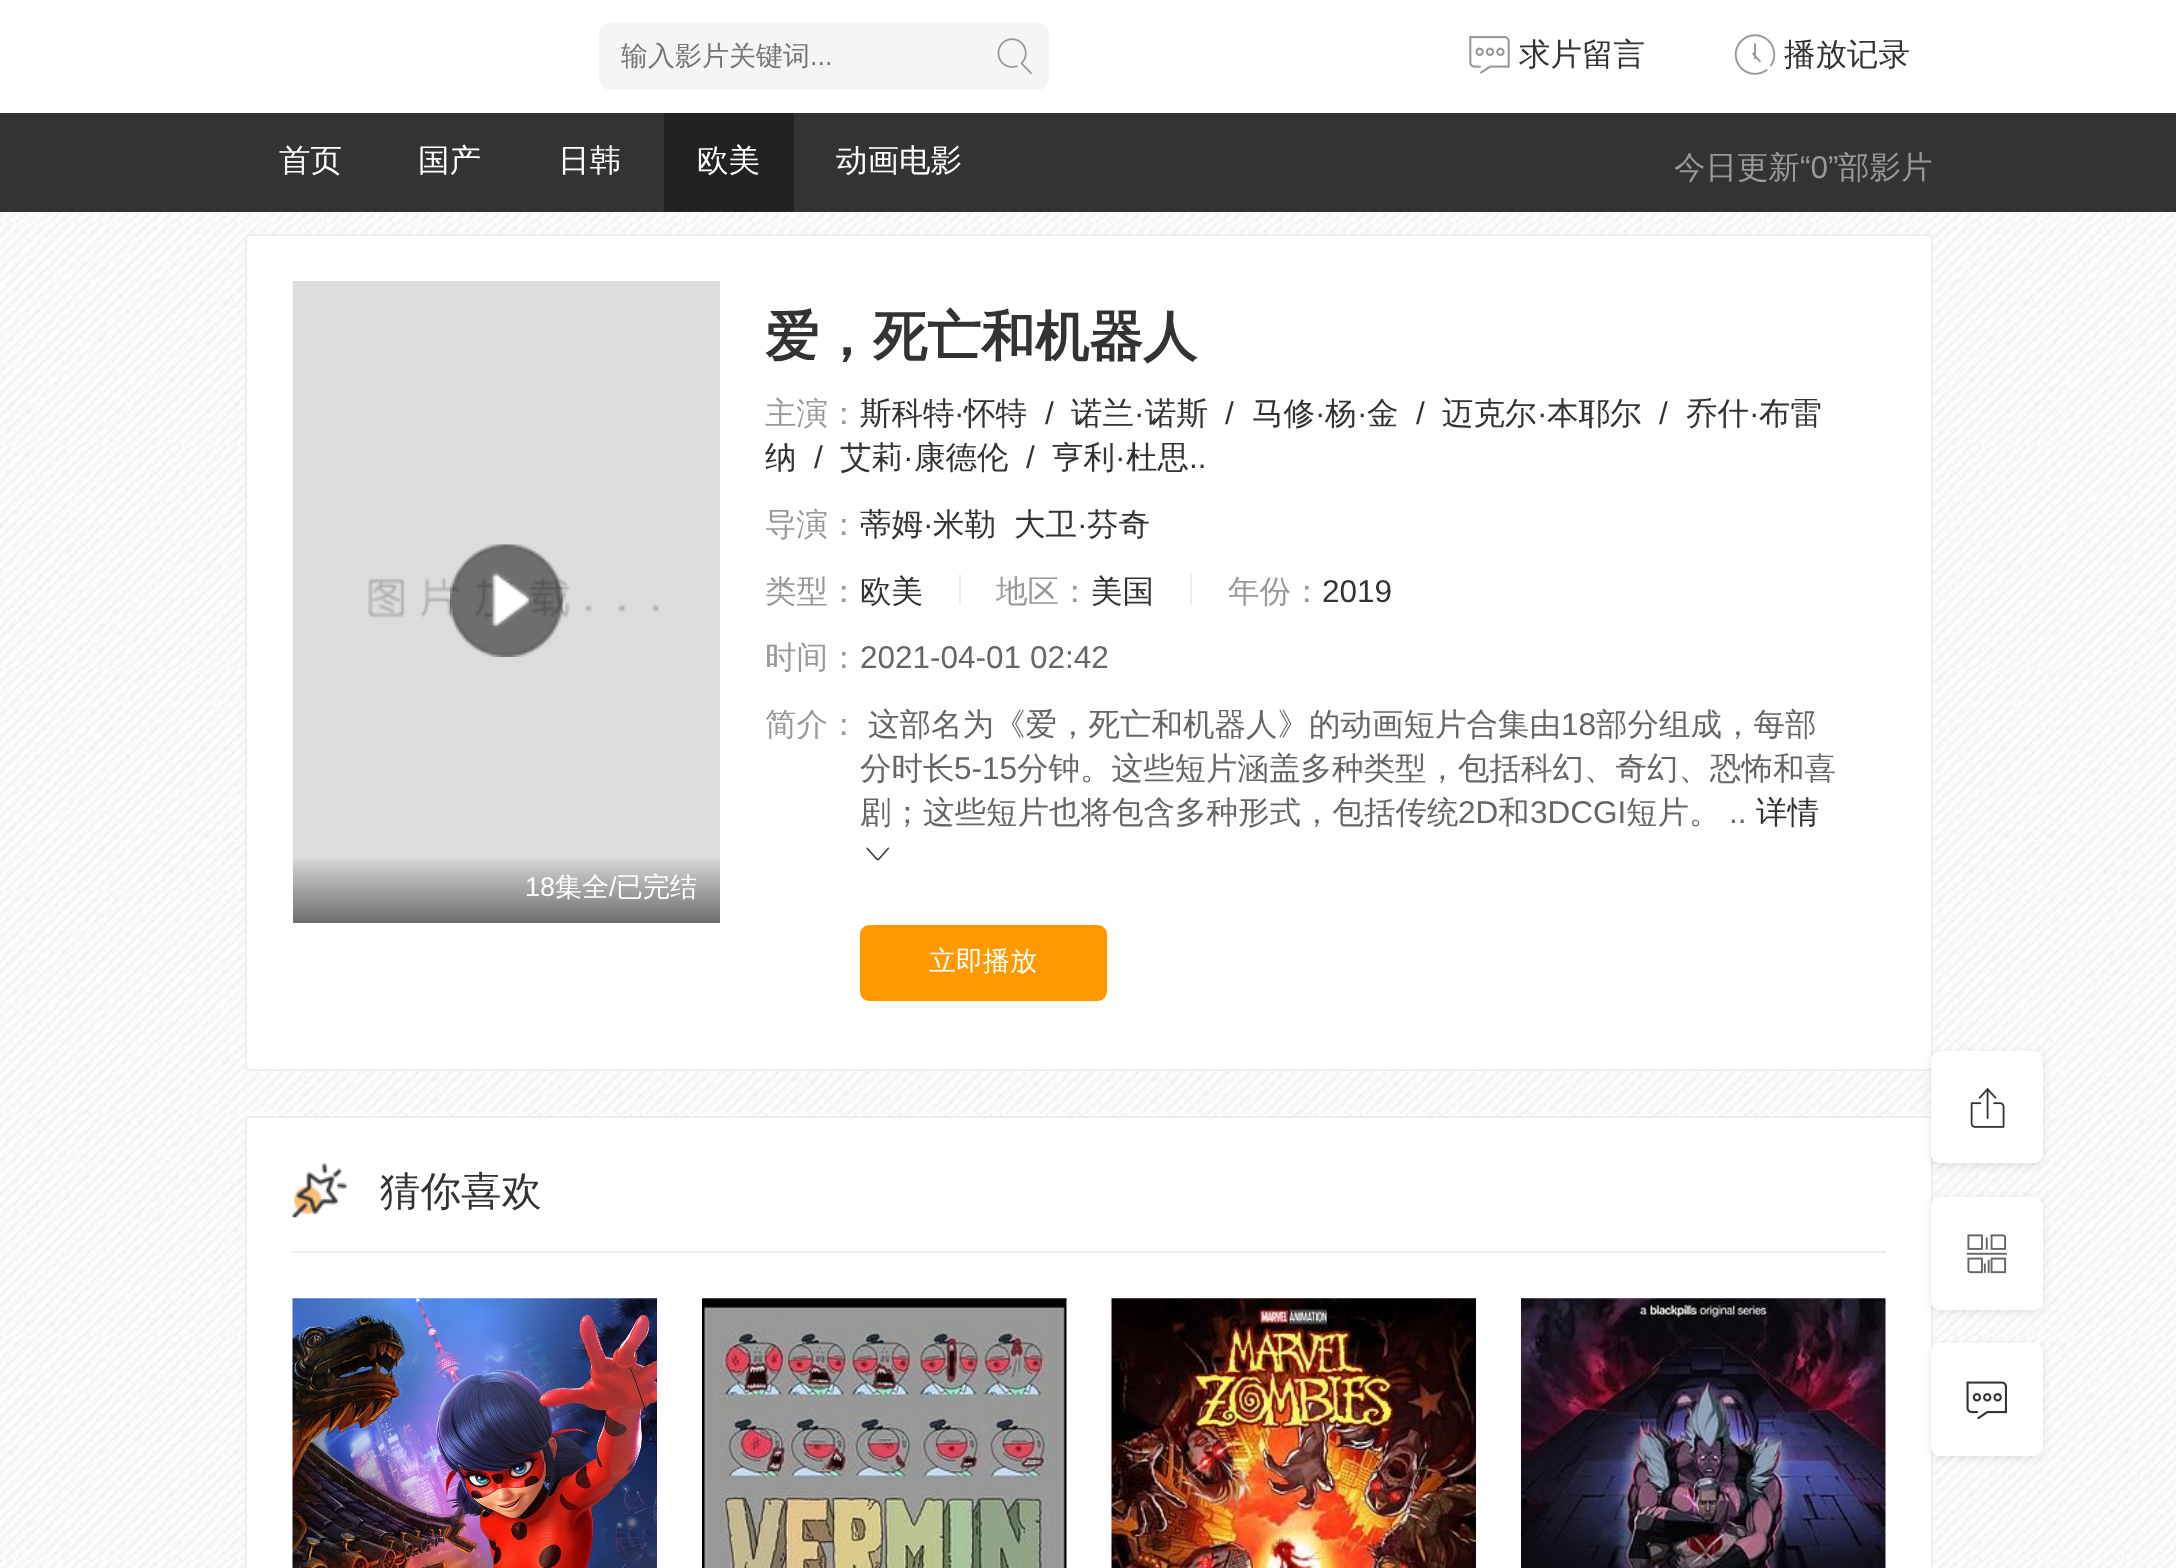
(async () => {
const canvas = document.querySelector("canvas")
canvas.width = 2176
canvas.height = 1568
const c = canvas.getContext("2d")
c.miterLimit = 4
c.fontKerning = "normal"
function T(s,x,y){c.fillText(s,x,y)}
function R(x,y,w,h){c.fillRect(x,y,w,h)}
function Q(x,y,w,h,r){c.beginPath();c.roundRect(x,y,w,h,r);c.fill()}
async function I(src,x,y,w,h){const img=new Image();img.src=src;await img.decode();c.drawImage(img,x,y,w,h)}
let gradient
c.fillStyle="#fff"
R(0,0,2176,1568)
await I("1.png",0,212,2176,1356)
c.fillStyle="#f5f5f5"
Q(599,23,450,67,11)
c.font="500 27px WenQuanYi Zen Hei"
c.fillStyle="#757575"
T("输入影片关键词",621,65)
c.font="27px Liberation Sans"
T("...",810,65)
await I("2.png",997,38,35,37)
await I("3.png",1469,36,41,38)
c.font="500 31.5px WenQuanYi Zen Hei"
c.fillStyle="#333"
T("求片留言",1519,65)
await I("4.png",1734,34,42,41)
T("播放记录",1784,65)
R(0,113,2176,99)
c.fillStyle="#fff"
T("首页",279,171)
T("国产",418,171)
T("日韩",558,171)
c.fillStyle="#222"
R(664,113,130,99)
c.fillStyle="#fff"
T("欧美",697,171)
T("动画电影",836,171)
c.fillStyle="#999"
T("今日更新",1674,178)
c.font="31.5px Liberation Sans"
T("“0”",1800,178)
c.font="500 31.5px WenQuanYi Zen Hei"
T("部影片",1838,178)
c.fillStyle="#fff"
c.beginPath()
c.roundRect(246,235,1686,835,4)
c.fill()
c.strokeStyle="#eee"
c.lineWidth=2
c.stroke()
await I("5.png",292,281,428,642)
gradient = c.createLinearGradient(506,855,506,923)
gradient.addColorStop(0,"#00000000")
gradient.addColorStop(1,"#00000080")
c.fillStyle = gradient
R(293,858,427,65)
c.fillStyle="#0000001a"
R(293,281,427,642)
await I("6.png",450,544,113,113)
c.font="27px Liberation Sans"
c.fillStyle="#fff"
T("18",525,896)
c.font="500 27px WenQuanYi Zen Hei"
T("集全",555,896)
c.font="27px Liberation Sans"
T("/",609,896)
c.font="500 27px WenQuanYi Zen Hei"
T("已完结",616,896)
c.font="bold 54px WenQuanYi Zen Hei"
c.fillStyle="#333"
T("爱，死亡和机器人",765,355)
c.font="500 31.5px WenQuanYi Zen Hei"
c.fillStyle="#999"
T("主演：",765,424)
c.fillStyle="#333"
T("斯科特",860,424)
c.font="31.5px Liberation Sans"
T("·",954,424)
c.font="500 31.5px WenQuanYi Zen Hei"
T("怀特",964,424)
c.font="31.5px Liberation Sans"
T("/",1045,424)
c.font="500 31.5px WenQuanYi Zen Hei"
T("诺兰",1071,424)
c.font="31.5px Liberation Sans"
T("·",1134,424)
c.font="500 31.5px WenQuanYi Zen Hei"
T("诺斯",1145,424)
c.font="31.5px Liberation Sans"
T("/",1225,424)
c.font="500 31.5px WenQuanYi Zen Hei"
T("马修",1252,424)
c.font="31.5px Liberation Sans"
T("·",1315,424)
c.font="500 31.5px WenQuanYi Zen Hei"
T("杨",1325,424)
c.font="31.5px Liberation Sans"
T("·",1357,424)
c.font="500 31.5px WenQuanYi Zen Hei"
T("金",1367,424)
c.font="31.5px Liberation Sans"
T("/",1416,424)
c.font="500 31.5px WenQuanYi Zen Hei"
T("迈克尔",1442,424)
c.font="31.5px Liberation Sans"
T("·",1537,424)
c.font="500 31.5px WenQuanYi Zen Hei"
T("本耶尔",1547,424)
c.font="31.5px Liberation Sans"
T("/",1659,424)
c.font="500 31.5px WenQuanYi Zen Hei"
T("乔什",1686,424)
c.font="31.5px Liberation Sans"
T("·",1749,424)
c.font="500 31.5px WenQuanYi Zen Hei"
T("布雷",1759,424)
T("纳",765,468)
c.font="31.5px Liberation Sans"
T("/",814,468)
c.font="500 31.5px WenQuanYi Zen Hei"
T("艾莉",840,468)
c.font="31.5px Liberation Sans"
T("·",903,468)
c.font="500 31.5px WenQuanYi Zen Hei"
T("康德伦",914,468)
c.font="31.5px Liberation Sans"
T("/",1026,468)
c.font="500 31.5px WenQuanYi Zen Hei"
T("亨利",1052,468)
c.font="31.5px Liberation Sans"
T("·",1115,468)
c.font="500 31.5px WenQuanYi Zen Hei"
T("杜思",1126,468)
c.font="31.5px Liberation Sans"
T("..",1189,468)
c.font="500 31.5px WenQuanYi Zen Hei"
c.fillStyle="#999"
T("导演：",765,535)
c.fillStyle="#333"
T("蒂姆",860,535)
c.font="31.5px Liberation Sans"
T("·",923,535)
c.font="500 31.5px WenQuanYi Zen Hei"
T("米勒",933,535)
T("大卫",1014,535)
c.font="31.5px Liberation Sans"
T("·",1077,535)
c.font="500 31.5px WenQuanYi Zen Hei"
T("芬奇",1087,535)
c.fillStyle="#999"
T("类型：",765,602)
c.fillStyle="#333"
T("欧美",860,602)
c.fillStyle="#eee"
R(959,574,2,31)
c.fillStyle="#999"
T("地区：",996,602)
c.fillStyle="#333"
T("美国",1091,602)
c.fillStyle="#eee"
R(1190,574,2,31)
c.fillStyle="#999"
T("年份：",1228,602)
c.font="31.5px Liberation Sans"
c.fillStyle="#333"
T("2019",1322,602)
c.font="500 31.5px WenQuanYi Zen Hei"
c.fillStyle="#999"
T("时间：",765,668)
c.font="31.5px Liberation Sans"
c.fillStyle="#666"
T("2021-04-01 02:42",860,668)
c.font="500 31.5px WenQuanYi Zen Hei"
c.fillStyle="#999"
T("简介：",765,735)
c.fillStyle="#666"
T("这部名为《爱，死亡和机器人》的动画短片合集由",868,735)
c.font="31.5px Liberation Sans"
T("18",1561,735)
c.font="500 31.5px WenQuanYi Zen Hei"
T("部分组成，每部",1596,735)
T("分时长",860,779)
c.font="31.5px Liberation Sans"
T("5-15",954,779)
c.font="500 31.5px WenQuanYi Zen Hei"
T("分钟。这些短片涵盖多种类型，包括科幻、奇幻、恐怖和喜",1017,779)
T("剧；这些短片也将包含多种形式，包括传统",860,823)
c.font="31.5px Liberation Sans"
T("2D",1458,823)
c.font="500 31.5px WenQuanYi Zen Hei"
T("和",1498,823)
c.font="31.5px Liberation Sans"
T("3DCGI",1530,823)
c.font="500 31.5px WenQuanYi Zen Hei"
T("短片。",1626,823)
c.font="31.5px Liberation Sans"
T("..",1729,823)
c.font="500 31.5px WenQuanYi Zen Hei"
c.fillStyle="#333"
T("详情",1756,823)
await I("7.png",866,847,24,14)
c.fillStyle="#f90"
c.beginPath()
c.roundRect(861,926,245,74,8)
c.fill()
c.strokeStyle="#f90"
c.stroke()
c.font="500 27px WenQuanYi Zen Hei"
c.fillStyle="#fff"
T("立即播放",929,970)
c.beginPath()
c.roundRect(246,1117,1686,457,4)
c.fill()
c.strokeStyle="#eee"
c.stroke()
await I("8.png",292,1163,55,55)
c.font="500 40.5px WenQuanYi Zen Hei"
c.fillStyle="#333"
T("猜你喜欢",380,1205)
c.fillStyle="#eee"
R(293,1251,1593,2)
await I("9.png",292,1298,365,270)
await I("10.png",702,1298,365,270)
await I("11.png",1111,1298,365,270)
await I("12.png",1521,1298,365,270)
c.fillStyle="#0000001a"
c.filter="blur(4.5px)"
c.beginPath()
c.roundRect(1931,1053,112,113,9)
c.fill()
c.filter="none"
c.fillStyle="#fff"
Q(1931,1051,112,112,9)
await I("13.png",1970,1087,35,41)
c.fillStyle="#0000001a"
c.filter="blur(4.5px)"
c.beginPath()
c.roundRect(1931,1199,112,113,9)
c.fill()
c.filter="none"
c.fillStyle="#fff"
Q(1931,1197,112,113,9)
await I("14.png",1966,1234,41,40)
c.fillStyle="#0000001a"
c.filter="blur(4.5px)"
c.beginPath()
c.roundRect(1931,1346,112,112,9)
c.fill()
c.filter="none"
c.fillStyle="#fff"
Q(1931,1343,112,113,9)
await I("15.png",1966,1381,41,39)
})()
